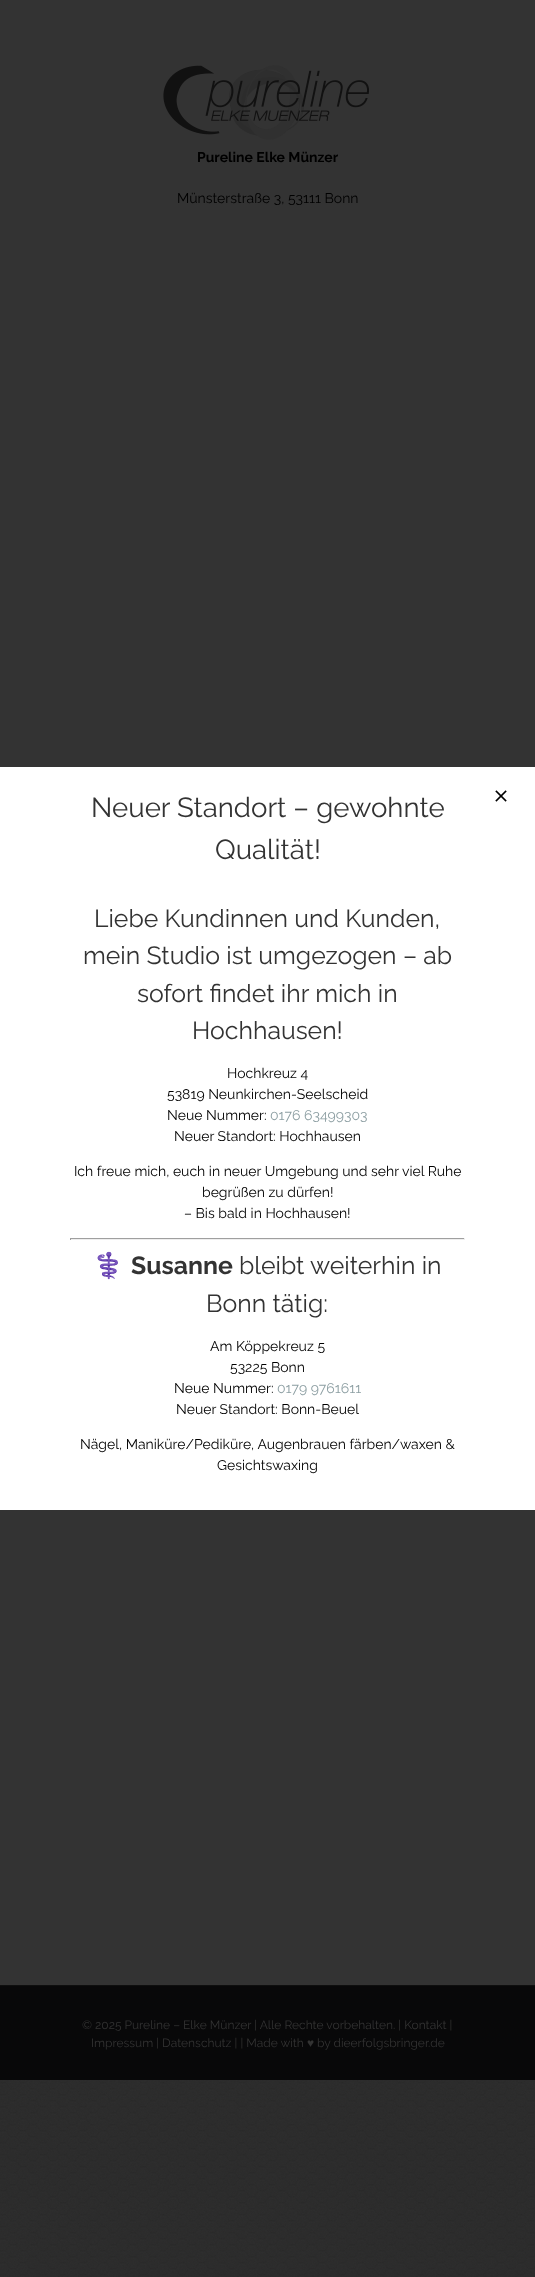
(async () => {
const canvas = document.querySelector("canvas")
canvas.width = 535
canvas.height = 2277
const c = canvas.getContext("2d")
c.miterLimit = 4
c.fontKerning = "normal"
function T(s,x,y){c.fillText(s,x,y)}
function R(x,y,w,h){c.fillRect(x,y,w,h)}
async function I(src,x,y,w,h){const img=new Image();img.src=src;await img.decode();c.drawImage(img,x,y,w,h)}
c.fillStyle="#fff"
R(0,0,535,2277)
await I("1.png",0,2080,535,197)
c.fillStyle="#333"
R(0,0,535,1985)
await I("2.png",163,65,206,75)
c.font="bold 14px Raleway"
c.fillStyle="#000"
T("Pureline Elke Münzer",197,162)
c.font="14px Raleway"
T("Münsterstraße 3, 53111 Bonn",177,203)
c.fillStyle="#080809"
R(0,1986,535,94)
c.fillStyle="#0f0f0f"
R(0,1985,535,1)
c.font="12px Raleway"
c.fillStyle="#333"
T("© 2025 Pureline – Elke Münzer | Alle Rechte vorbehalten. | Kontakt |",82,2029)
T("Impressum | Datenschutz | | Made with",91,2047)
c.font="12px Liberation Serif"
T("♥",307,2047)
c.font="12px Raleway"
T("by dieerfolgsbringer.de",317,2047)
c.fillStyle="#fff"
R(0,767,535,743)
c.font="27.6px Raleway"
c.fillStyle="#333"
T("Neuer Standort – gewohnte",91,817)
T("Qualität!",215,859)
c.font="24.8px Raleway"
T("Liebe Kundinnen und Kunden,",94,927)
T("mein Studio ist umgezogen – ab",83,964)
T("sofort findet ihr mich in",137,1002)
T("Hochhausen!",192,1039)
c.font="14px Raleway"
c.fillStyle="#000"
T("Hochkreuz 4",227,1078)
T("53819 Neunkirchen-Seelscheid",167,1099)
T("Neue Nummer:",167,1120)
c.fillStyle="#8c9ea2"
T("0176 63499303",270,1120)
c.fillStyle="#000"
T("Neuer Standort: Hochhausen",174,1141)
T("Ich freue mich, euch in neuer Umgebung und sehr viel Ruhe",74,1176)
T("begrüßen zu dürfen!",202,1197)
T("– Bis bald in Hochhausen!",184,1218)
c.fillStyle="#9f9f9f"
R(70,1238,395,1)
c.fillStyle="#eee"
R(464,1238,1,2)
R(70,1239,395,1)
c.fillStyle="#9f9f9f"
R(70,1238,1,2)
c.font="24.8px Noto Color Emoji"
c.fillStyle="#333"
T("‍⚕️",93,1274)
c.font="bold 24.8px Raleway"
T("Susanne",131,1274)
c.font="24.8px Raleway"
T("bleibt weiterhin in",239,1274)
T("Bonn tätig:",206,1312)
c.font="14px Raleway"
c.fillStyle="#000"
T("Am Köppekreuz 5",210,1351)
T("53225 Bonn",230,1372)
T("Neue Nummer:",174,1393)
c.fillStyle="#8c9ea2"
T("0179 9761611",277,1393)
c.fillStyle="#000"
T("Neuer Standort: Bonn-Beuel",176,1414)
T("Nägel, Maniküre/Pediküre, Augenbrauen färben/waxen &",80,1449)
T("Gesichtswaxing",217,1470)
await I("3.png",495,790,12,12)
})()
